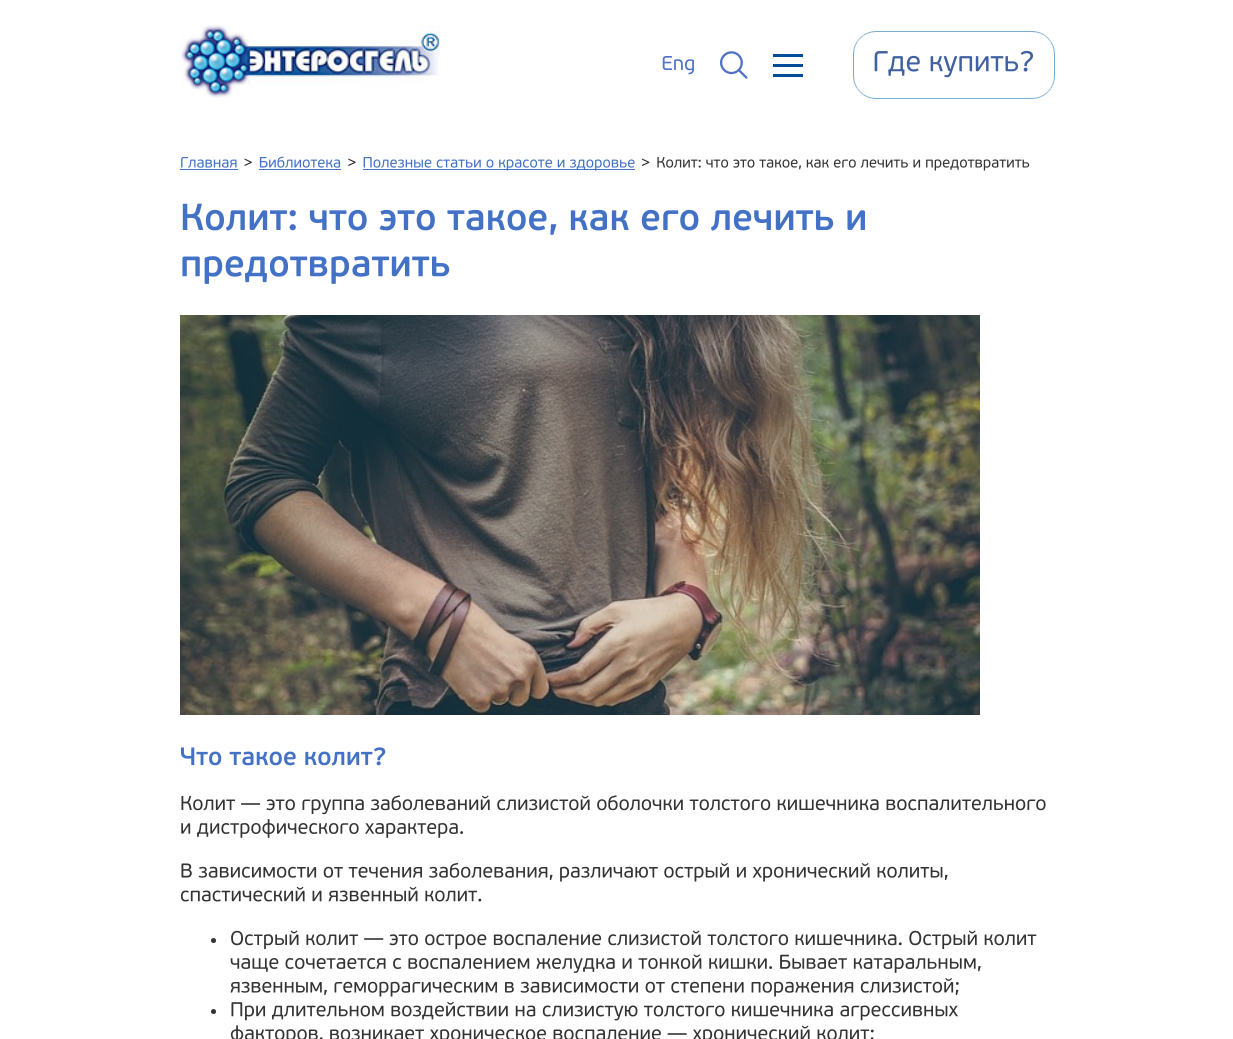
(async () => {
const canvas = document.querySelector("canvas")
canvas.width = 1233
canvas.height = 1039
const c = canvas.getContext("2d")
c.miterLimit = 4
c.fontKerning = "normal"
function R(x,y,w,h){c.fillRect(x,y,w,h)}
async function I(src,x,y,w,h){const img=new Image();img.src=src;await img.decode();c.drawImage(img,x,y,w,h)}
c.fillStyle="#fff"
R(0,0,1233,1039)
await I("1.png",180,25,260,73)
await I("2.png",662,56,32,19)
await I("3.png",720,51,28,28)
c.fillStyle="#004c98"
R(773,54,30,3)
R(773,64,30,3)
R(773,74,30,3)
c.beginPath()
c.roundRect(853.5,31.5,201,67,22.5)
c.strokeStyle="#7badd1"
c.stroke()
await I("4.png",874,50,159,28)
await I("5.png",181,157,56,11)
await I("6.png",244,158,8,8)
c.fillStyle="#4371c6"
R(180,169,58,1)
await I("7.png",259,156,82,12)
await I("8.png",348,158,8,8)
R(259,169,82,1)
R(363,169,272,1)
await I("9.png",363,157,272,14)
await I("10.png",642,158,8,8)
await I("11.png",657,157,373,14)
await I("12.png",182,203,683,32)
await I("13.png",182,256,268,28)
await I("14.png",180,315,800,400)
await I("15.png",180,747,206,19)
await I("16.png",181,795,865,20)
await I("17.png",181,819,282,19)
await I("18.png",181,862,767,20)
await I("19.png",180,886,302,16)
c.fillStyle="#333"
c.beginPath()
c.arc(213.5,940.5,2.5,0,7)
c.fill()
await I("20.png",231,930,806,20)
await I("21.png",230,954,751,19)
await I("22.png",230,978,729,19)
c.beginPath()
c.arc(213.5,1011.5,2.5,0,7)
c.fill()
await I("23.png",231,1001,727,20)
await I("24.png",230,1025,644,14)
})()
